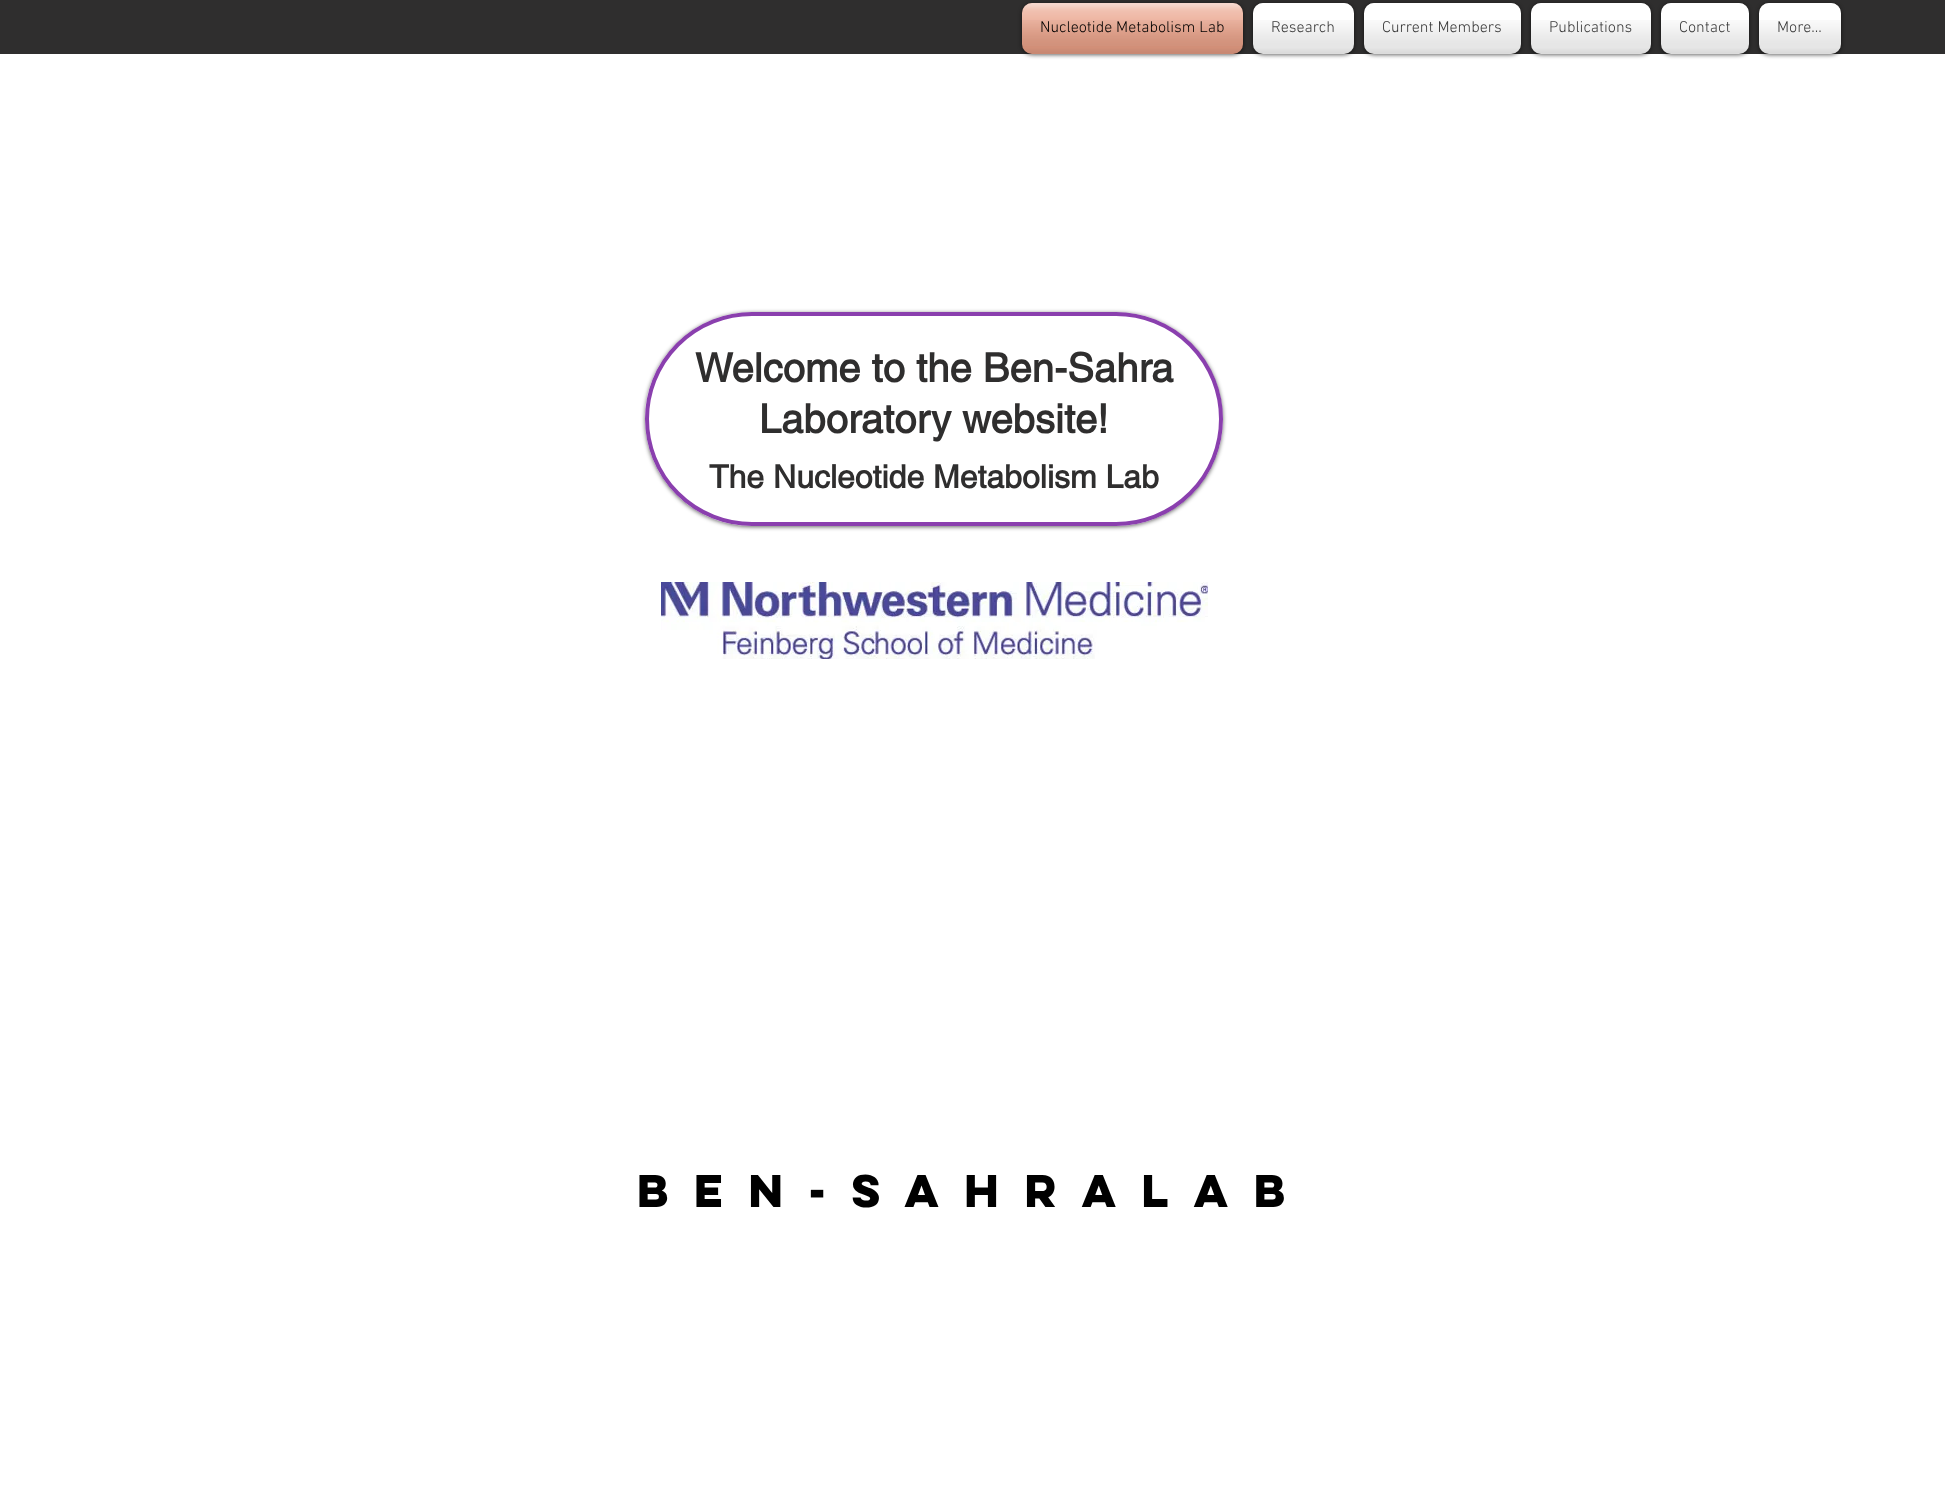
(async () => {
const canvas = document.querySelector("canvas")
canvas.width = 1945
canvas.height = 1509
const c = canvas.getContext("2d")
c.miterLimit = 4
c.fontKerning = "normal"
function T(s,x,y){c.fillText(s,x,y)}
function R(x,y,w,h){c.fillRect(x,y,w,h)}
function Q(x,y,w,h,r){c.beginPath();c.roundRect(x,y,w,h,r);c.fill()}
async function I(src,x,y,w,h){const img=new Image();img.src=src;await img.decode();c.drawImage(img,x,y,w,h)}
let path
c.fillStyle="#fff"
R(0,0,1945,1509)
c.fillStyle="#2f2e2e"
R(0,0,1945,54)
c.fillStyle="#00000099"
c.filter="blur(2px)"
c.beginPath()
c.roundRect(1022,4,221,51,10)
c.fill()
c.filter="none"
c.fillStyle="#e99f86"
Q(1022,3,221,51,10)
await I("1.png",1022,3,221,43)
await I("2.png",1022,20,221,34)
c.font="300 16px 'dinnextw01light'"
c.fillStyle="#000"
T("Nucleotide Metabolism Lab",1040,32)
c.fillStyle="#00000099"
c.filter="blur(2px)"
c.beginPath()
c.roundRect(1253,4,101,51,10)
c.fill()
c.filter="none"
c.fillStyle="#fff"
Q(1253,3,101,51,10)
await I("3.png",1253,3,101,9)
await I("4.png",1253,20,101,34)
c.fillStyle="#383838"
T("Research",1271,32)
c.fillStyle="#00000099"
c.filter="blur(2px)"
c.beginPath()
c.roundRect(1364,4,157,51,10)
c.fill()
c.filter="none"
c.fillStyle="#fff"
Q(1364,3,157,51,10)
await I("5.png",1364,3,157,9)
await I("6.png",1364,20,157,34)
c.fillStyle="#383838"
T("Current Members",1382,32)
c.fillStyle="#00000099"
c.filter="blur(2px)"
c.beginPath()
c.roundRect(1531,4,120,51,10)
c.fill()
c.filter="none"
c.fillStyle="#fff"
Q(1531,3,120,51,10)
await I("7.png",1531,3,120,9)
await I("8.png",1531,20,120,34)
c.fillStyle="#383838"
T("Publications",1549,32)
c.fillStyle="#00000099"
c.filter="blur(2px)"
c.beginPath()
c.roundRect(1661,4,88,51,10)
c.fill()
c.filter="none"
c.fillStyle="#fff"
Q(1661,3,88,51,10)
await I("9.png",1661,3,88,9)
await I("10.png",1661,20,88,34)
c.fillStyle="#383838"
T("Contact",1679,32)
c.fillStyle="#00000099"
c.filter="blur(2px)"
c.beginPath()
c.roundRect(1759,4,82,51,10)
c.fill()
c.filter="none"
c.fillStyle="#fff"
Q(1759,3,82,51,10)
await I("11.png",1759,3,82,9)
await I("12.png",1759,20,82,34)
c.fillStyle="#383838"
T("More...",1777,32)
c.save()
path = new Path2D("M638 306h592v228h-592zm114 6h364c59 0 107 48 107 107c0 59-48 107-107 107h-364c-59 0-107-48-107-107c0-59 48-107 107-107z")
c.clip(path,"evenodd")
c.fillStyle="#00000099"
c.filter="blur(2px)"
c.beginPath()
c.roundRect(645,313,578,214,107)
c.fill()
c.filter="none"
c.restore()
c.fillStyle="#ffffffbf"
c.beginPath()
c.roundRect(647,314,574,210,105)
c.fill()
c.strokeStyle="#8a3fae"
c.lineWidth=4
c.stroke()
c.font="bold 40px helvetica"
c.fillStyle="#2f2e2e"
T("Welcome to the Ben-Sahra",695,382)
T("Laboratory website!",759,433)
c.font="bold 32px helvetica"
T("The Nucleotide Metabolism Lab",709,488)
await I("13.png",661,582,547,77)
c.letterSpacing="16.4px"
c.font="bold 41px 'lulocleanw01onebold'"
c.fillStyle="#000"
T("Ben-sahralab",637,1207)
})()
